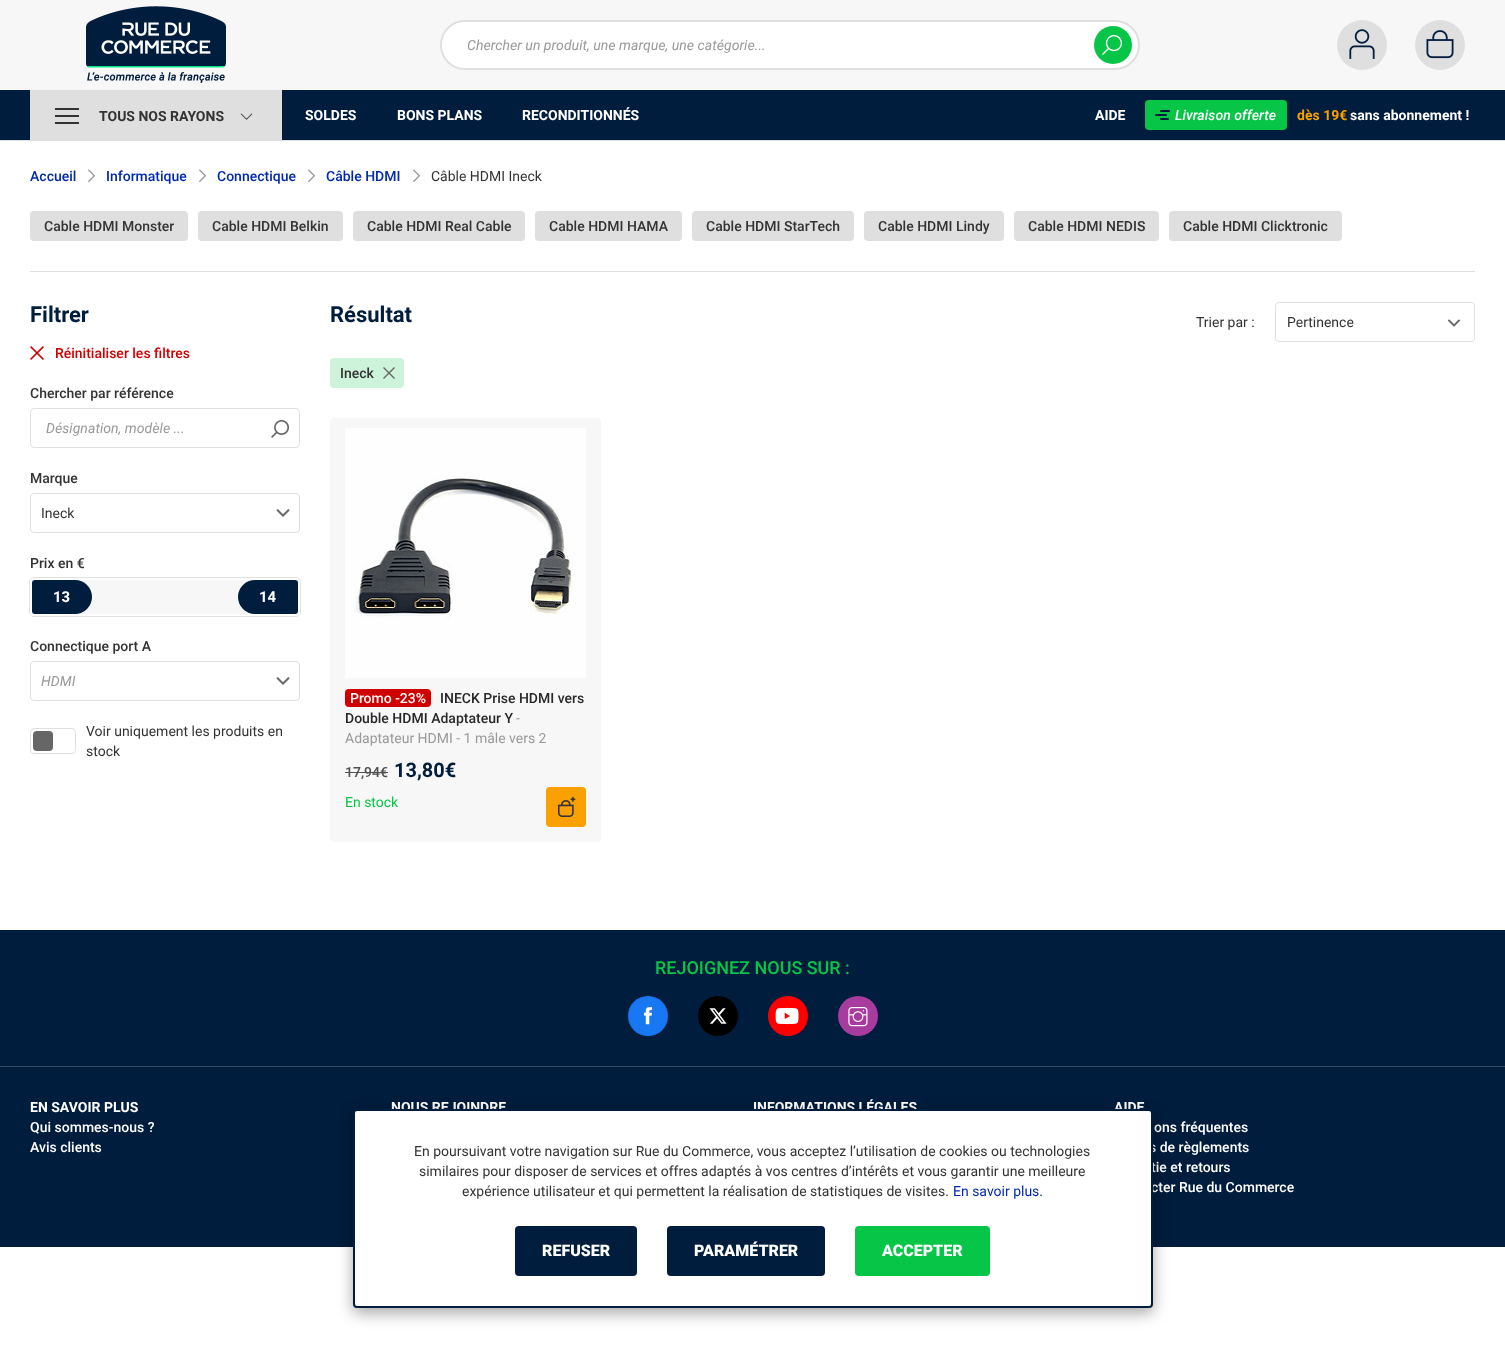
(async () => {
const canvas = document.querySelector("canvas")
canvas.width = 1505
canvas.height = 1368
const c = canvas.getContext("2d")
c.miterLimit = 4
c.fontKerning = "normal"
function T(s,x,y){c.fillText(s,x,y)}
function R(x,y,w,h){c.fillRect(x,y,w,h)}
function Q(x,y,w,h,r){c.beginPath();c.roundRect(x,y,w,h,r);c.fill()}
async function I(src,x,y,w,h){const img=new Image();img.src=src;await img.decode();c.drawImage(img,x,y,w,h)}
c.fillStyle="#fff"
R(0,0,1505,1368)
c.fillStyle="#dfdfdf"
R(0,140,1505,1)
c.fillStyle="#f7f7f7"
R(0,0,1505,90)
await I("1.png",86,6,140,77)
c.fillStyle="#fff"
c.beginPath()
c.roundRect(441,21,698,48,24)
c.fill()
c.strokeStyle="#dfdfdf"
c.lineWidth=2
c.stroke()
Q(442,22,671,46,23)
c.font="italic 14px Roboto"
c.fillStyle="#999"
T("Chercher un produit, une marque, une catégorie...",467,50)
c.fillStyle="#07c546"
c.beginPath()
c.arc(1113,45,19,0,7)
c.fill()
await I("2.png",1102,35,20,20)
c.fillStyle="#dfdfdf"
c.beginPath()
c.arc(1362,45,25,0,7)
c.fill()
await I("3.png",1349,29,26,30)
c.beginPath()
c.arc(1440,45,25,0,7)
c.fill()
await I("4.png",1426,30,28,29)
c.fillStyle="#001d3d"
R(0,90,1505,50)
c.fillStyle="#dfdfdf"
R(30,90,252,50)
c.fillStyle="#333"
R(55,122,24,2)
R(55,108,24,2)
R(55,115,24,2)
c.font="bold 14px Roboto"
T("TOUS NOS RAYONS",99,121)
await I("5.png",240,113,13,7)
c.fillStyle="#fff"
T("SOLDES",305,120)
T("BONS PLANS",397,120)
T("RECONDITIONNÉS",522,120)
T("AIDE",1095,120)
c.fillStyle="#07c546"
Q(1145,100,142,30,4)
await I("6.png",1155,110,15,10)
c.font="italic 500 14px Roboto"
c.fillStyle="#fff"
T("Livraison offerte",1175,120)
c.font="bold 14px Roboto"
c.fillStyle="#faa000"
T("dès 19€",1297,120)
c.fillStyle="#fff"
T("sans abonnement !",1350,120)
c.font="500 14px Roboto"
c.fillStyle="#0029af"
T("Accueil",30,181)
await I("7.png",88,169,8,14)
T("Informatique",106,181)
await I("7.png",199,169,8,14)
T("Connectique",217,181)
await I("7.png",308,169,8,14)
T("Câble HDMI",326,181)
await I("7.png",413,169,8,14)
c.font="14px Roboto"
c.fillStyle="#333"
T("Câble HDMI Ineck",431,181)
c.fillStyle="#dfdfdf"
Q(30,211,158,30,4)
c.font="500 14px Roboto"
c.fillStyle="#333"
T("Cable HDMI Monster",44,231)
c.fillStyle="#dfdfdf"
Q(198,211,145,30,4)
c.fillStyle="#333"
T("Cable HDMI Belkin",212,231)
c.fillStyle="#dfdfdf"
Q(353,211,172,30,4)
c.fillStyle="#333"
T("Cable HDMI Real Cable",367,231)
c.fillStyle="#dfdfdf"
Q(535,211,147,30,4)
c.fillStyle="#333"
T("Cable HDMI HAMA",549,231)
c.fillStyle="#dfdfdf"
Q(692,211,162,30,4)
c.fillStyle="#333"
T("Cable HDMI StarTech",706,231)
c.fillStyle="#dfdfdf"
Q(864,211,140,30,4)
c.fillStyle="#333"
T("Cable HDMI Lindy",878,231)
c.fillStyle="#dfdfdf"
Q(1014,211,145,30,4)
c.fillStyle="#333"
T("Cable HDMI NEDIS",1028,231)
c.fillStyle="#dfdfdf"
Q(1169,211,173,30,4)
c.fillStyle="#333"
T("Cable HDMI Clicktronic",1183,231)
c.fillStyle="#dfdfdf"
R(30,271,1445,1)
c.font="bold 22px Roboto"
c.fillStyle="#001d3d"
T("Filtrer",30,322)
await I("8.png",30,346,14,14)
c.font="500 14px Roboto"
c.fillStyle="#cf0000"
T("Réinitialiser les filtres",55,358)
c.fillStyle="#333"
T("Chercher par référence",30,398)
c.beginPath()
c.roundRect(30.5,408.5,269,39,3.5)
c.lineWidth=1
c.stroke()
c.font="italic 14px Roboto"
c.fillStyle="#999"
T("Désignation, modèle ...",46,433)
await I("9.png",271,420,19,18)
c.font="500 14px Roboto"
c.fillStyle="#333"
T("Marque",30,483)
c.beginPath()
c.roundRect(30.5,493.5,269,39,3.5)
c.stroke()
c.font="14px Roboto"
T("Ineck",41,518)
await I("10.png",276,509,14,8)
c.font="500 14px Roboto"
T("Prix en €",30,568)
c.beginPath()
c.roundRect(29.5,577.5,271,39,4.5)
c.strokeStyle="#e1e1e1"
c.stroke()
c.fillStyle="#fff"
c.beginPath()
c.roundRect(31,579,268,36,3)
c.fill()
c.strokeStyle="#fff"
c.lineWidth=2
c.stroke()
c.fillStyle="#f7f7f7"
R(77,580,176,34)
c.fillStyle="#001d3d"
c.beginPath()
c.roundRect(32,580,60,34,[3,17,17,3])
c.fill()
c.font="bold 15px Roboto"
c.fillStyle="#fff"
T("13",53,602)
c.fillStyle="#001d3d"
c.beginPath()
c.roundRect(238,580,60,34,[17,3,3,17])
c.fill()
c.fillStyle="#fff"
T("14",259,602)
c.font="500 14px Roboto"
c.fillStyle="#333"
T("Connectique port A",30,651)
c.beginPath()
c.roundRect(30.5,661.5,269,39,3.5)
c.strokeStyle="#dfdfdf"
c.lineWidth=1
c.stroke()
c.font="italic 14px Roboto"
c.fillStyle="#999"
T("HDMI",41,686)
await I("10.png",276,677,14,8)
c.beginPath()
c.roundRect(30.5,728.5,45,25,3.5)
c.stroke()
c.fillStyle="#666"
Q(33,731,20,20,4)
c.font="14px Roboto"
c.fillStyle="#333"
T("Voir uniquement les produits en",86,736)
T("stock",86,756)
c.font="bold 22px Roboto"
c.fillStyle="#001d3d"
T("Résultat",330,322)
c.font="14px Roboto"
c.fillStyle="#333"
T("Trier par :",1196,327)
c.beginPath()
c.roundRect(1275.5,302.5,199,39,3.5)
c.stroke()
T("Pertinence",1287,327)
await I("11.png",1447,319,14,8)
c.fillStyle="#cdf3da"
Q(330,358,74,30,4)
c.font="500 14px Roboto"
c.fillStyle="#333"
T("Ineck",340,378)
await I("12.png",383,367,12,12)
c.fillStyle="#f7f7f7"
Q(330,418,271,424,4)
await I("13.png",345,428,241,250)
c.fillStyle="#cf0000"
Q(345,689,86,18,4)
c.fillStyle="#fff"
T("Promo -23%",350,703)
c.fillStyle="#282828"
T("INECK Prise HDMI vers",440,703)
T("Double HDMI Adaptateur Y",345,723)
c.font="14px Roboto"
c.fillStyle="#999"
T("-",516,723)
T("Adaptateur HDMI - 1 mâle vers 2",345,743)
c.font="500 14px Roboto"
c.fillStyle="#505050"
T("17,94€",345,777)
R(345,772,43,1)
c.font="bold 20px Roboto"
c.fillStyle="#001d3d"
T("13,80€",394,777)
c.font="14px Roboto"
c.fillStyle="#07c546"
T("En stock",345,807)
c.fillStyle="#faa000"
Q(546,787,40,40,4)
await I("14.png",558,797,18,20)
c.fillStyle="#001d3d"
R(0,930,1505,136)
c.fillStyle="#334a64"
R(0,1066,1505,1)
c.font="500 18px Roboto"
c.fillStyle="#07c546"
T("REJOIGNEZ NOUS SUR :",655,974)
c.fillStyle="#1877f2"
c.beginPath()
c.arc(648,1016,20,0,7)
c.fill()
await I("15.png",644,1007,9,18)
c.fillStyle="#000"
c.beginPath()
c.arc(718,1016,20,0,7)
c.fill()
await I("16.png",709,1008,18,16)
c.fillStyle="#f00"
c.beginPath()
c.arc(788,1016,20,0,7)
c.fill()
await I("17.png",775,1007,24,18)
c.fillStyle="#a83c9e"
c.beginPath()
c.arc(858,1016,20,0,7)
c.fill()
await I("18.png",848,1007,20,20)
c.fillStyle="#001d3d"
R(0,1067,1505,180)
c.font="bold 14px Roboto"
c.fillStyle="#fff"
T("EN SAVOIR PLUS",30,1112)
c.font="500 14px Roboto"
T("Qui sommes-nous ?",30,1132)
T("Avis clients",30,1152)
c.font="bold 14px Roboto"
T("NOUS REJOINDRE",391,1112)
T("INFORMATIONS LÉGALES",753,1112)
T("AIDE",1114,1112)
c.font="500 14px Roboto"
T("ons fréquentes",1154,1132)
T("s de règlements",1149,1152)
T("tie et retours",1151,1172)
T("cter Rue du Commerce",1151,1192)
c.fillStyle="#00000059"
c.filter="blur(7.5px)"
c.beginPath()
c.roundRect(353,1114,800,199,4)
c.fill()
c.filter="none"
c.fillStyle="#fff"
c.beginPath()
c.roundRect(354,1110,798,197,3)
c.fill()
c.strokeStyle="#001d3d"
c.lineWidth=2
c.stroke()
c.font="14px Roboto"
c.fillStyle="#333"
T("En poursuivant votre navigation sur Rue du Commerce, vous acceptez l’utilisation de cookies ou technologies",414,1156)
T("similaires pour disposer de services et offres adaptés à vos centres d’intérêts et vous garantir une meilleure",419,1176)
T("expérience utilisateur et qui permettent la réalisation de statistiques de visites.",462,1196)
c.fillStyle="#0029af"
T("En savoir plus.",953,1196)
c.fillStyle="#001d3d"
Q(515,1226,122,50,4)
c.font="900 16px Roboto"
c.fillStyle="#fff"
T("REFUSER",542,1256)
c.fillStyle="#001d3d"
Q(667,1226,158,50,4)
c.fillStyle="#fff"
T("PARAMÉTRER",694,1256)
c.fillStyle="#07c546"
Q(855,1226,135,50,4)
c.fillStyle="#fff"
T("ACCEPTER",882,1256)
})()
